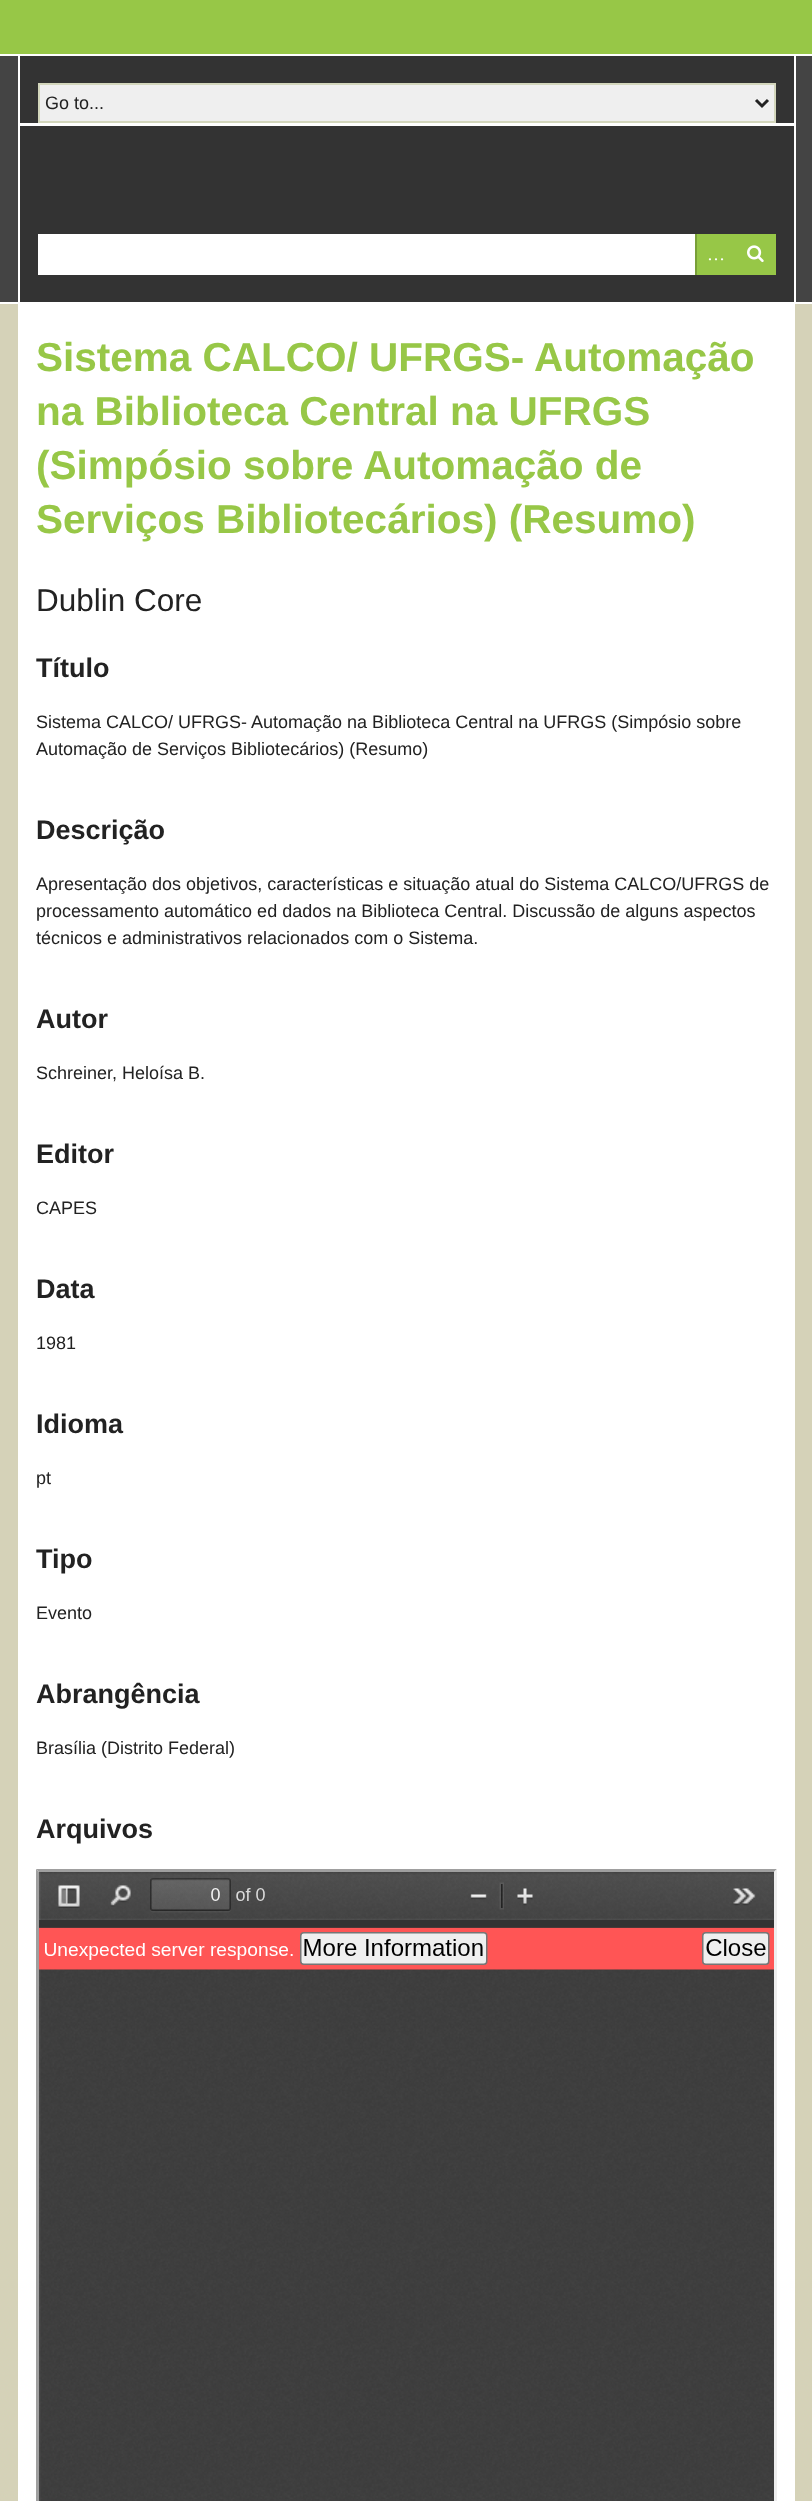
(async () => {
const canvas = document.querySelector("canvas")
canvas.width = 812
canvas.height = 2501
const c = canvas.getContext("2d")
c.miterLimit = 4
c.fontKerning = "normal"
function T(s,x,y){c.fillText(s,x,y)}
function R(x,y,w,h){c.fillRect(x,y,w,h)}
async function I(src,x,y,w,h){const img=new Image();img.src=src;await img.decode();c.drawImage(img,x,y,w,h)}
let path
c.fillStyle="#d5d2b8"
R(0,0,812,2501)
c.fillStyle="#97c747"
R(0,0,812,54)
c.fillStyle="#444"
R(0,56,812,246)
c.fillStyle="#fff"
R(0,54,812,2)
R(0,302,812,2)
c.fillStyle="#333"
R(20,56,774,246)
c.fillStyle="#fff"
R(794,56,2,246)
R(18,56,2,246)
R(20,123,774,3)
c.fillStyle="#efefef"
c.beginPath()
c.rect(39,84,736,38)
c.fill()
c.strokeStyle="#d3d6bc"
c.lineWidth=2
c.stroke()
path = new Path2D("M756 100l6 6l6-6")
c.strokeStyle="#222"
c.lineWidth=3
c.stroke(path)
c.font="18px Liberation Sans"
c.fillStyle="#222"
T("Go to...",45,109)
c.fillStyle="#fff"
R(38,234,657,41)
c.fillStyle="#97c747"
R(697,234,79,41)
c.fillStyle="#799f39"
R(695,234,2,41)
c.font="18px Liberation Serif"
c.fillStyle="#fff"
T("…",707,260)
await I("1.png",747,245,17,18)
R(18,304,777,2197)
c.font="bold 40.5px Liberation Sans"
c.fillStyle="#97c747"
T("Sistema CALCO/ UFRGS- Automação",36,371)
T("na Biblioteca Central na UFRGS",36,425)
T("(Simpósio sobre Automação de",36,479)
T("Serviços Bibliotecários) (Resumo)",36,533)
c.font="31.5px Liberation Sans"
c.fillStyle="#222"
T("Dublin Core",36,611)
c.font="bold 27px Liberation Sans"
T("Título",36,677)
c.font="18px Liberation Sans"
T("Sistema CALCO/ UFRGS- Automação na Biblioteca Central na UFRGS (Simpósio sobre",36,728)
T("Automação de Serviços Bibliotecários) (Resumo)",36,755)
c.font="bold 27px Liberation Sans"
T("Descrição",36,839)
c.font="18px Liberation Sans"
T("Apresentação dos objetivos, características e situação atual do Sistema CALCO/UFRGS de",36,890)
T("processamento automático ed dados na Biblioteca Central. Discussão de alguns aspectos",36,917)
T("técnicos e administrativos relacionados com o Sistema.",36,944)
c.font="bold 27px Liberation Sans"
T("Autor",36,1028)
c.font="18px Liberation Sans"
T("Schreiner, Heloísa B.",36,1079)
c.font="bold 27px Liberation Sans"
T("Editor",36,1163)
c.font="18px Liberation Sans"
T("CAPES",36,1214)
c.font="bold 27px Liberation Sans"
T("Data",36,1298)
c.font="18px Liberation Sans"
T("1981",36,1349)
c.font="bold 27px Liberation Sans"
T("Idioma",36,1433)
c.font="18px Liberation Sans"
T("pt",36,1484)
c.font="bold 27px Liberation Sans"
T("Tipo",36,1568)
c.font="18px Liberation Sans"
T("Evento",36,1619)
c.font="bold 27px Liberation Sans"
T("Abrangência",36,1703)
c.font="18px Liberation Sans"
T("Brasília (Distrito Federal)",36,1754)
c.font="bold 27px Liberation Sans"
T("Arquivos",36,1838)
c.fillStyle="#9f9f9f"
path = new Path2D("M36 1869h741l-3 3h-735z")
c.fill(path)
path = new Path2D("M36 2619v-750l3 3v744z")
c.fill(path)
await I("2.png",39,1872,735,629)
c.fillStyle="#eee"
path = new Path2D("M777 1869v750l-3-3v-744z")
c.fill(path)
})()
